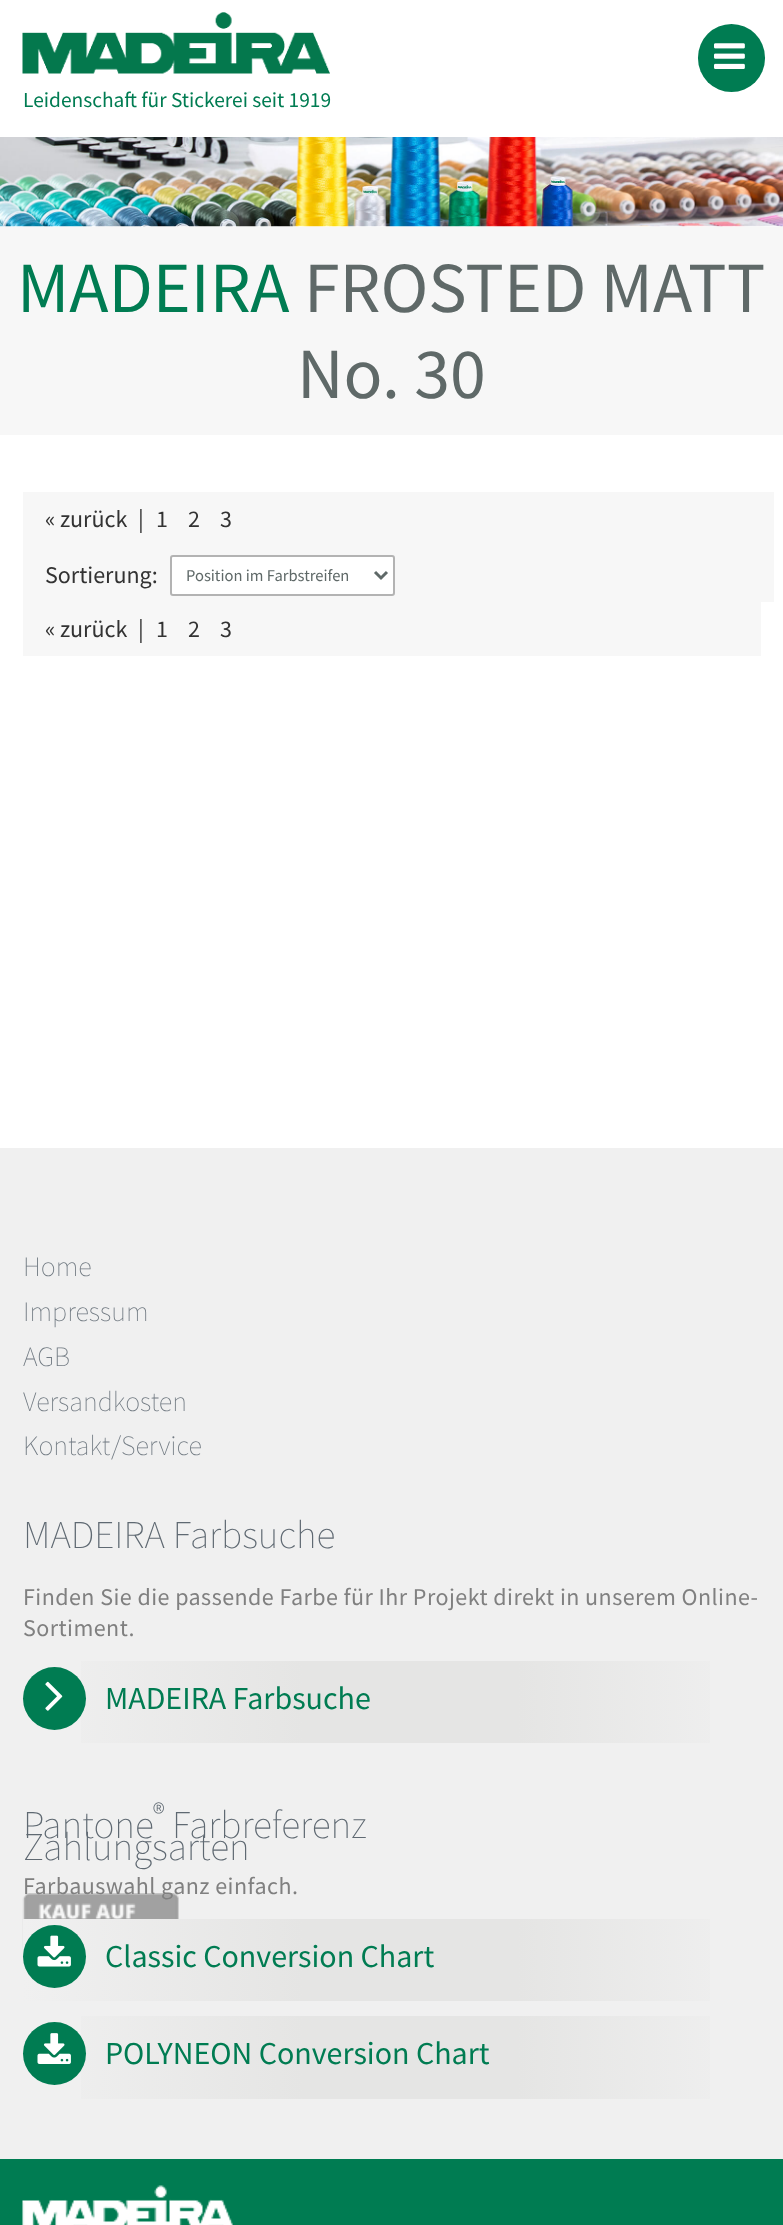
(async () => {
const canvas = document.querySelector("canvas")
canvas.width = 783
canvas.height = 2225
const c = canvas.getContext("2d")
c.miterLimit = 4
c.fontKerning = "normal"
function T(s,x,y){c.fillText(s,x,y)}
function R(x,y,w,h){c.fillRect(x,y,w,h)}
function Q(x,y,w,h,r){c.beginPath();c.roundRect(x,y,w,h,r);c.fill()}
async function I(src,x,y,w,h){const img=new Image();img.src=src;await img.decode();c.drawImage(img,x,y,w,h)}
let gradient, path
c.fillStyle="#fff"
R(0,0,783,2225)
c.fillStyle="#007c52"
Q(698,24,67,68,33.5)
await I("1.png",714,43,31,26)
await I("2.png",22,12,308,62)
c.font="21.4px Source Sans Pro"
T("Leidenschaft für Stickerei seit 1919",23,107)
await I("3.png",0,137,783,90)
c.fillStyle="#f7f7f7"
R(0,227,783,208)
c.font="72px Source Sans Pro"
c.fillStyle="#007c52"
T("MADEIRA",17,312)
c.fillStyle="#5f6968"
T("FROSTED MATT",304,312)
T("No. 30",297,398)
c.fillStyle="#f7f7f7"
R(23,492,751,110)
c.font="24px Source Sans Pro"
c.fillStyle="#333"
T("« zurück",45,527)
T("|",138,527)
T("1",156,527)
T("2",188,527)
T("3",220,527)
T("Sortierung:",45,583)
c.fillStyle="#fff"
c.beginPath()
c.roundRect(171,556,223,39,2)
c.fill()
c.strokeStyle="#b3b3b3"
c.lineWidth=2
c.stroke()
path = new Path2D("M375 572l6 6l6-6")
c.strokeStyle="#5f6968"
c.lineWidth=3
c.stroke(path)
c.font="16.5px Source Sans Pro"
c.fillStyle="#5f6968"
T("Position im Farbstreifen",186,581)
c.fillStyle="#f7f7f7"
R(23,602,738,54)
c.font="24px Source Sans Pro"
c.fillStyle="#333"
T("« zurück",45,637)
T("|",138,637)
T("1",156,637)
T("2",188,637)
T("3",220,637)
c.fillStyle="#f0f0f0"
R(0,1148,783,1011)
c.font="200 28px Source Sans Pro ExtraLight"
c.fillStyle="#717a82"
T("Home",23,1276)
T("Impressum",23,1321)
T("AGB",23,1366)
T("Versandkosten",23,1411)
T("Kontakt/Service",23,1455)
c.font="200 39.25px Source Sans Pro ExtraLight"
c.fillStyle="#5f6972"
T("Zahlungsarten",23,1860)
await I("4.png",22,1893,157,56)
T("MADEIRA Farbsuche",23,1548)
c.letterSpacing="0.45px"
c.font="24px Source Sans Pro"
c.fillStyle="#808080"
T("Finden Sie die passende Farbe für Ihr Projekt direkt in unserem Online-",23,1605)
T("Sortiment.",23,1636)
gradient = c.createLinearGradient(23,1702,761,1702)
gradient.addColorStop(0,"#f0f0f0")
gradient.addColorStop(.38,"#e5e5e4")
gradient.addColorStop(.67,"#e5e5e4")
gradient.addColorStop(1,"#f0f0f0")
c.fillStyle = gradient
R(81,1661,629,82)
c.fillStyle="#007c52"
c.beginPath()
c.arc(54.5,1698.5,31.5,0,7)
c.fill()
await I("5.png",45,1681,18,30)
c.letterSpacing="0px"
c.font="32px Source Sans Pro"
T("MADEIRA Farbsuche",105,1709)
c.font="200 39.25px Source Sans Pro ExtraLight"
c.fillStyle="#5f6972"
T("Pantone",23,1838)
c.font="200 29px Source Sans Pro ExtraLight"
T("®",153,1823)
c.font="200 39.25px Source Sans Pro ExtraLight"
T("Farbreferenz",172,1838)
c.letterSpacing="0.45px"
c.font="24px Source Sans Pro"
c.fillStyle="#808080"
T("Farbauswahl ganz einfach.",23,1894)
gradient = c.createLinearGradient(23,1960,761,1960)
gradient.addColorStop(0,"#f0f0f0")
gradient.addColorStop(.38,"#e5e5e4")
gradient.addColorStop(.67,"#e5e5e4")
gradient.addColorStop(1,"#f0f0f0")
c.fillStyle = gradient
R(23,1919,687,82)
c.fillStyle="#007c52"
c.beginPath()
c.arc(54.5,1956.5,31.5,0,7)
c.fill()
await I("6.png",37,1935,34,32)
c.letterSpacing="0px"
c.font="32px Source Sans Pro"
T("Classic Conversion Chart",105,1967)
gradient = c.createLinearGradient(23,2057,761,2057)
gradient.addColorStop(0,"#f0f0f0")
gradient.addColorStop(.38,"#e5e5e4")
gradient.addColorStop(.67,"#e5e5e4")
gradient.addColorStop(1,"#f0f0f0")
c.fillStyle = gradient
R(81,2016,629,83)
c.fillStyle="#007c52"
c.beginPath()
c.arc(54.5,2053.5,31.5,0,7)
c.fill()
await I("7.png",37,2033,34,31)
T("POLYNEON Conversion Chart",105,2064)
R(0,2159,783,66)
await I("8.png",22,2185,211,40)
})()
